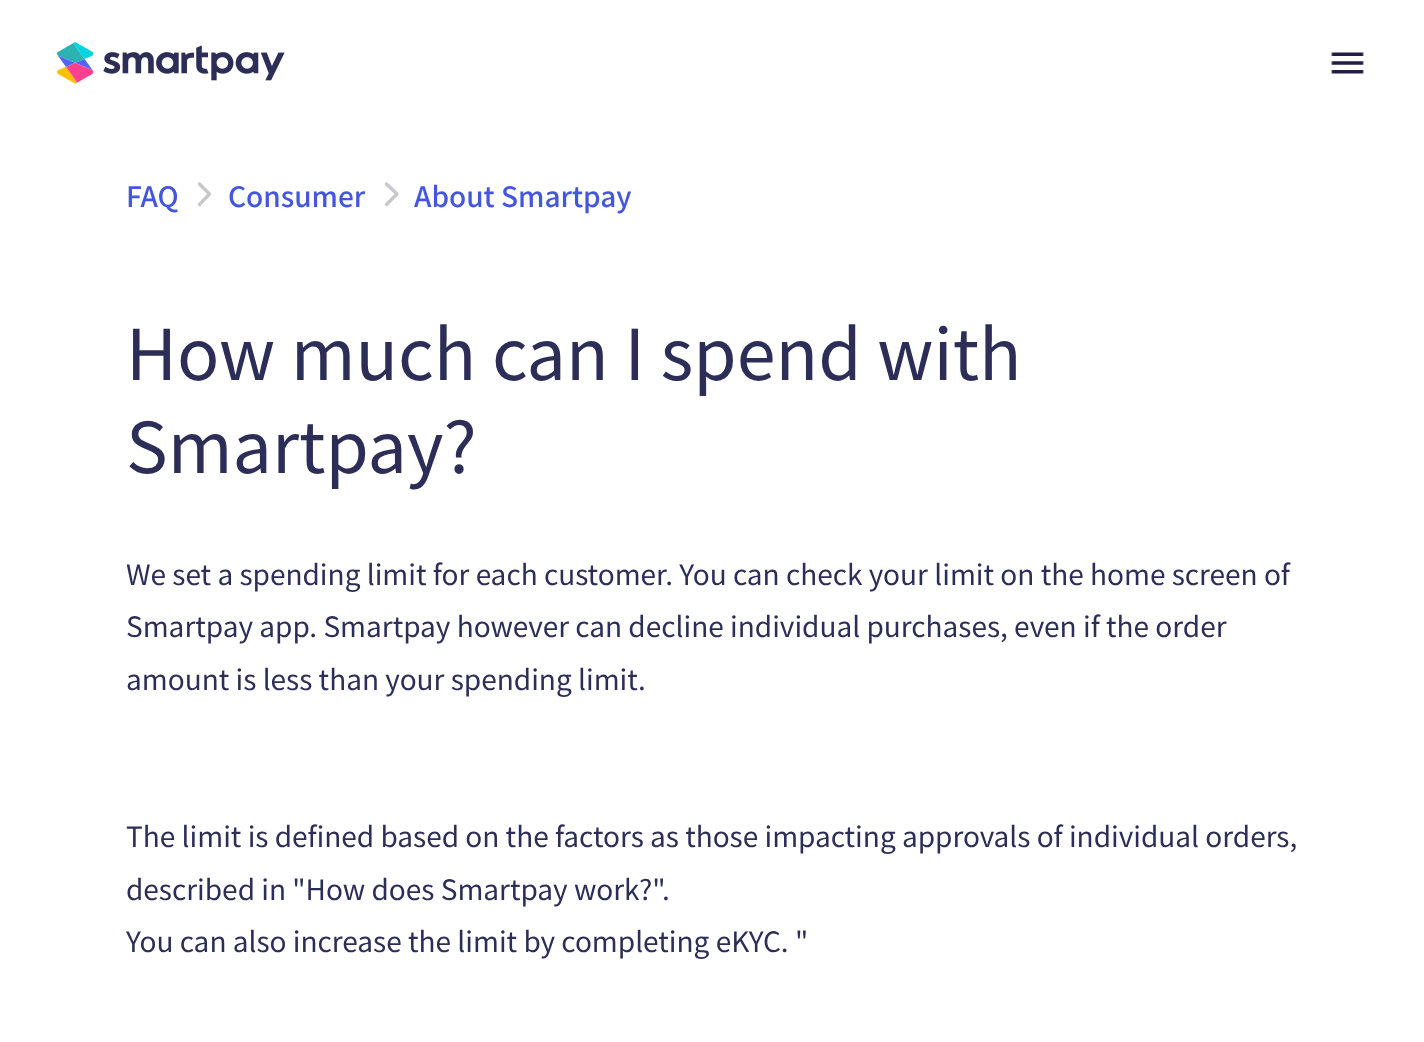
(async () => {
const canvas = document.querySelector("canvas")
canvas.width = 1424
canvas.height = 1042
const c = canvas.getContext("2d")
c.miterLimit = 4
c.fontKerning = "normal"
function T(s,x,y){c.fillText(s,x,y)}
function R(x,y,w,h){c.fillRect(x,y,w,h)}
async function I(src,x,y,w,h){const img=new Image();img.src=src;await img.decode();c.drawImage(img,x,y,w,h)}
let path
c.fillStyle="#fff"
R(0,0,1424,1042)
await I("1.png",57,42,228,42)
await I("2.png",1331,52,33,22)
c.font="500 28px Noto Sans JP"
c.fillStyle="#4456dd"
T("FAQ",126,207)
path = new Path2D("M199.5 204.5l10-10.5l-10-10")
c.strokeStyle="#c7c8cc"
c.lineWidth=3.3
c.lineCap="round"
c.lineJoin="round"
c.stroke(path)
T("Consumer",228,207)
path = new Path2D("M386.5 204.5l10.5-10.5l-10.5-10")
c.stroke(path)
T("About Smartpay",414,207)
c.font="70px Noto Sans JP"
c.fillStyle="#2c2e57"
T("How much can I spend with",126,380)
T("Smartpay?",126,473)
c.font="28px Noto Sans JP"
T("We set a spending limit for each customer. You can check your limit on the home screen of",126,585)
T("Smartpay app. Smartpay however can decline individual purchases, even if the order",126,637)
T("amount is less than your spending limit.",126,690)
T("The limit is defined based on the factors as those impacting approvals of individual orders,",126,847)
T("described in \"How does Smartpay work?\".",126,900)
T("You can also increase the limit by completing eKYC. \"",126,952)
})()
